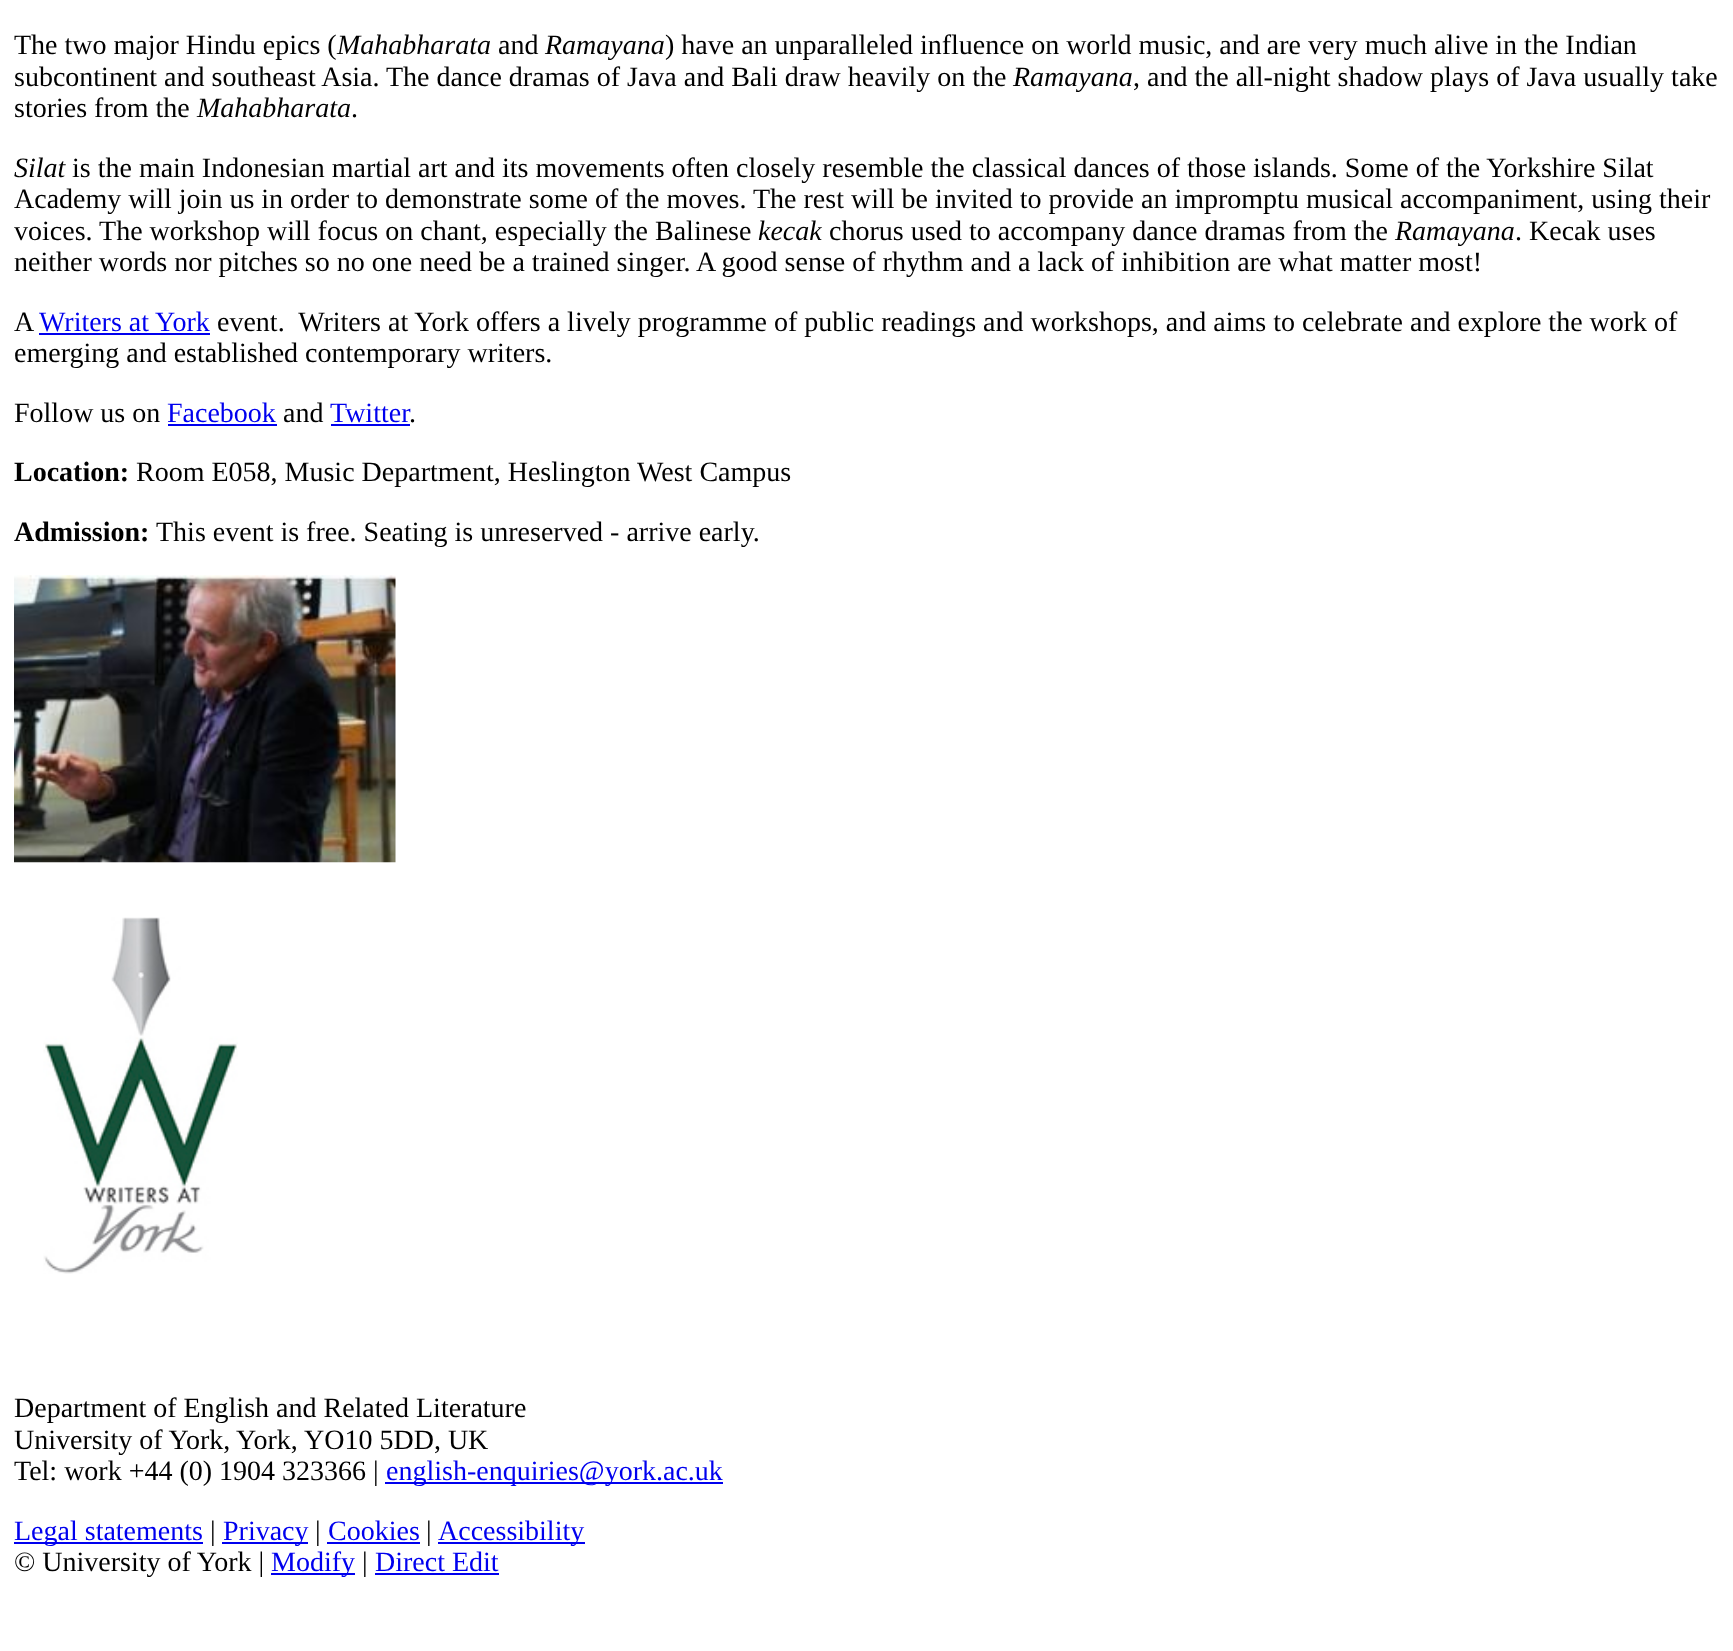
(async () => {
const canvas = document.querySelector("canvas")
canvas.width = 1733
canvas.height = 1651
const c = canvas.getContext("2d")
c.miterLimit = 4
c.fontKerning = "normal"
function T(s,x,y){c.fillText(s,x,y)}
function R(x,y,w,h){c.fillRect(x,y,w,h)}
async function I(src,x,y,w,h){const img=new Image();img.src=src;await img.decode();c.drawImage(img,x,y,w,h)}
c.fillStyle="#fff"
R(0,0,1733,1651)
c.font="28px Liberation Serif"
c.fillStyle="#000"
T("The two major Hindu epics (",14,54)
c.font="italic 28px Liberation Serif"
T("Mahabharata",337,54)
c.font="28px Liberation Serif"
T("and",498,54)
c.font="italic 28px Liberation Serif"
T("Ramayana",545,54)
c.font="28px Liberation Serif"
T(") have an unparalleled influence on world music, and are very much alive in the Indian",665,54)
T("subcontinent and southeast Asia. The dance dramas of Java and Bali draw heavily on the",14,86)
c.font="italic 28px Liberation Serif"
T("Ramayana",1013,86)
c.font="28px Liberation Serif"
T(", and the all-night shadow plays of Java usually take",1133,86)
T("stories from the",14,117)
c.font="italic 28px Liberation Serif"
T("Mahabharata",197,117)
c.font="28px Liberation Serif"
T(".",351,117)
c.font="italic 28px Liberation Serif"
T("Silat",14,177)
c.font="28px Liberation Serif"
T("is the main Indonesian martial art and its movements often closely resemble the classical dances of those islands. Some of the Yorkshire Silat",72,177)
T("Academy will join us in order to demonstrate some of the moves. The rest will be invited to provide an impromptu musical accompaniment, using their",14,208)
T("voices. The workshop will focus on chant, especially the Balinese",14,240)
c.font="italic 28px Liberation Serif"
T("kecak",758,240)
c.font="28px Liberation Serif"
T("chorus used to accompany dance dramas from the",829,240)
c.font="italic 28px Liberation Serif"
T("Ramayana",1395,240)
c.font="28px Liberation Serif"
T(". Kecak uses",1515,240)
T("neither words nor pitches so no one need be a trained singer. A good sense of rhythm and a lack of inhibition are what matter most!",14,271)
T("A",14,331)
c.fillStyle="#00e"
T("Writers at York",39,331)
R(39,333,171,2)
c.fillStyle="#000"
T("event.  Writers at York offers a lively programme of public readings and workshops, and aims to celebrate and explore the work of",217,331)
T("emerging and established contemporary writers.",14,362)
T("Follow us on",14,422)
c.fillStyle="#00e"
T("Facebook",167,422)
R(168,424,109,2)
c.fillStyle="#000"
T("and",283,422)
c.fillStyle="#00e"
T("Twitter",330,422)
R(331,424,79,2)
c.fillStyle="#000"
T(".",409,422)
c.font="bold 28px Liberation Serif"
T("Location:",14,481)
c.font="28px Liberation Serif"
T("Room E058, Music Department, Heslington West Campus",136,481)
c.font="bold 28px Liberation Serif"
T("Admission:",14,541)
c.font="28px Liberation Serif"
T("This event is free. Seating is unreserved - arrive early.",156,541)
await I("1.png",14,575,382,288)
await I("2.png",43,917,195,357)
T("Department of English and Related Literature",14,1417)
T("University of York,",14,1449)
T("York,",236,1449)
T("YO10 5DD, UK",304,1449)
T("Tel: work +44 (0) 1904 323366 |",14,1480)
c.fillStyle="#00e"
R(385,1482,338,2)
T("english-enquiries@york.ac.uk",386,1480)
R(14,1542,189,2)
T("Legal statements",14,1540)
c.fillStyle="#000"
T("|",210,1540)
c.fillStyle="#00e"
R(222,1542,86,2)
T("Privacy",223,1540)
c.fillStyle="#000"
T("|",315,1540)
c.fillStyle="#00e"
T("Cookies",328,1540)
R(327,1542,93,2)
c.fillStyle="#000"
T("|",426,1540)
c.fillStyle="#00e"
R(438,1542,147,2)
T("Accessibility",438,1540)
c.fillStyle="#000"
T("© University of York |",14,1571)
c.fillStyle="#00e"
R(271,1573,84,2)
T("Modify",271,1571)
c.fillStyle="#000"
T("|",362,1571)
c.fillStyle="#00e"
T("Direct Edit",375,1571)
R(375,1573,124,2)
})()
